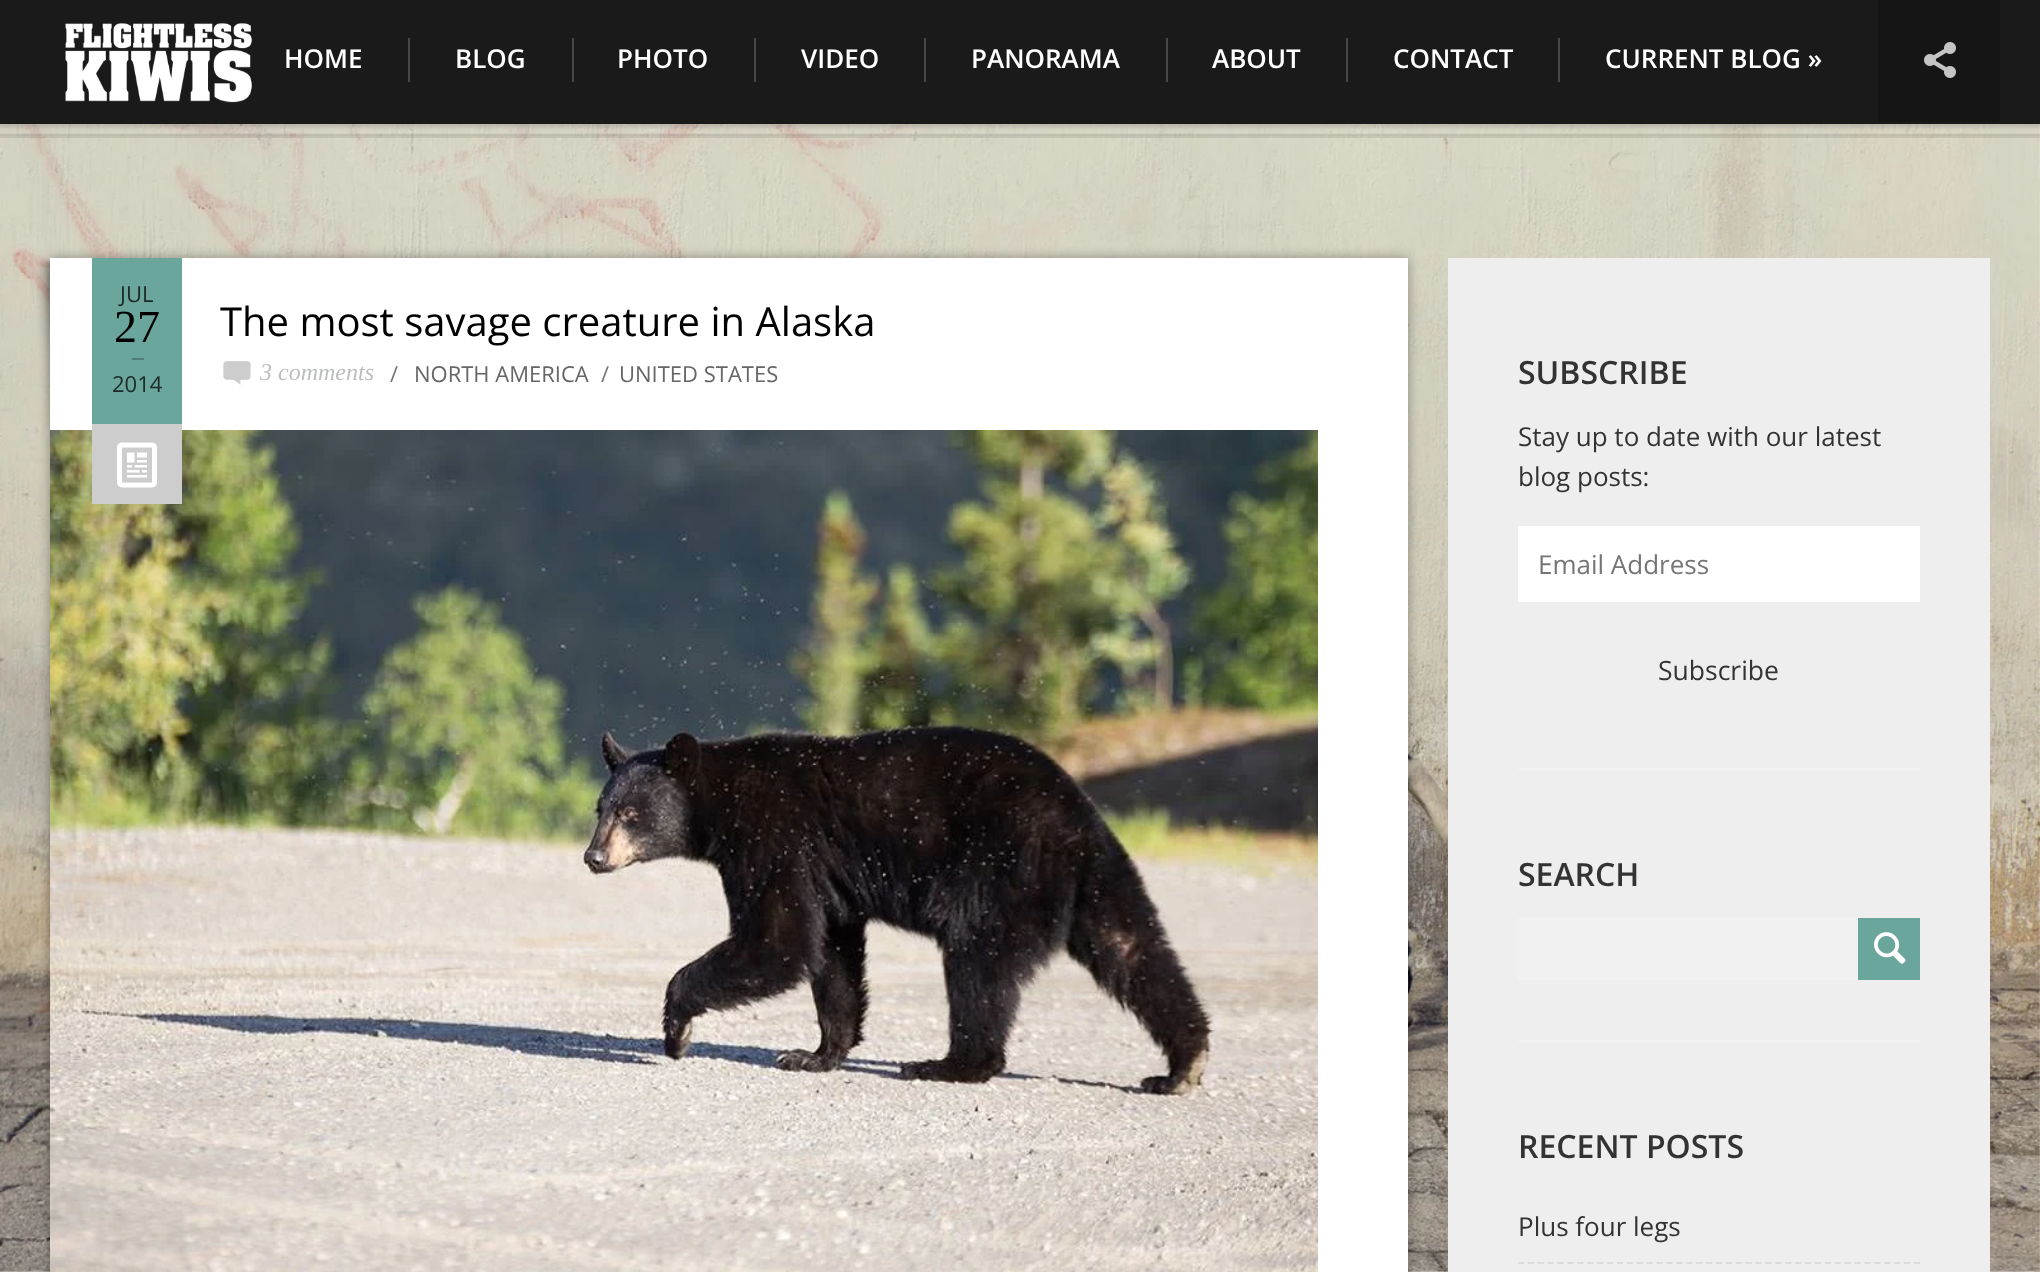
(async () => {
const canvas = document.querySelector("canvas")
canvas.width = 2040
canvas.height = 1272
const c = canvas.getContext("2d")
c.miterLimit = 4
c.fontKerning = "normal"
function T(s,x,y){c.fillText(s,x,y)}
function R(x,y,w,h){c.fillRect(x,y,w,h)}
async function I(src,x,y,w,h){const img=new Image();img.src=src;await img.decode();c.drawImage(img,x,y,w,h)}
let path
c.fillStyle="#fff"
R(0,0,2040,1272)
c.fillStyle="#1a1a1a"
R(0,0,2040,124)
await I("1.png",65,23,187,80)
c.font="600 26px Open Sans"
c.fillStyle="#fff"
T("HOME",284,68)
c.fillStyle="#484848"
R(408,38,2,44)
c.fillStyle="#fff"
T("BLOG",455,68)
c.fillStyle="#484848"
R(572,38,2,44)
c.fillStyle="#fff"
T("PHOTO",617,68)
c.fillStyle="#484848"
R(754,38,2,44)
c.fillStyle="#fff"
T("VIDEO",801,68)
c.fillStyle="#484848"
R(924,38,2,44)
c.fillStyle="#fff"
T("PANORAMA",971,68)
c.fillStyle="#484848"
R(1166,38,2,44)
c.fillStyle="#fff"
T("ABOUT",1212,68)
c.fillStyle="#484848"
R(1346,38,2,44)
c.fillStyle="#fff"
T("CONTACT",1393,68)
c.fillStyle="#484848"
R(1558,38,2,44)
c.fillStyle="#fff"
T("CURRENT BLOG »",1605,68)
c.fillStyle="#151515"
R(1878,0,122,122)
await I("2.png",1924,42,32,36)
await I("4.png",0,124,2040,1148)
await I("3.png",0,124,2040,14)
c.fillStyle="#fff"
R(50,258,1358,1014)
await I("8.png",50,430,1268,842)
c.save()
path = new Path2D("M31 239h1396v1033h-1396zm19 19h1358v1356h-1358z")
c.clip(path,"evenodd")
c.fillStyle="#00000059"
c.filter="blur(6px)"
c.beginPath()
c.rect(50,258,1358,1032)
c.fill()
c.filter="none"
c.restore()
await I("5.png",36,258,14,169)
c.fillStyle="#6ba69d"
R(92,258,90,166)
c.font="22px Open Sans"
c.fillStyle="#1b2a27"
T("JUL",120,302)
c.font="46px Liberation Serif"
c.fillStyle="#000"
T("27",114,342)
c.fillStyle="#507d76"
R(132,358,12,2)
c.font="22px Open Sans"
c.fillStyle="#1b2a27"
T("2014",112,392)
c.fillStyle="#cdcdcd"
R(92,424,90,80)
await I("6.png",117,442,40,46)
c.font="40px Open Sans"
c.fillStyle="#000"
T("The most savage creature in Alaska",220,336)
await I("7.png",223,361,28,24)
c.font="italic 24px Liberation Serif"
c.fillStyle="#bbbdbe"
T("3 comments",260,380)
c.font="22px Open Sans"
c.fillStyle="#757575"
T("/",390,382)
c.fillStyle="#666"
T("NORTH AMERICA",414,382)
c.fillStyle="#757575"
T("/",601,382)
c.fillStyle="#666"
T("UNITED STATES",619,382)
c.fillStyle="#eee"
R(1448,258,542,1014)
c.fillStyle="#f1f1f1"
R(1518,768,402,2)
c.font="600 32px Open Sans"
c.fillStyle="#333"
T("SUBSCRIBE",1518,384)
c.font="26px Open Sans"
T("Stay up to date with our latest",1518,446)
T("blog posts:",1518,486)
c.fillStyle="#fff"
R(1518,526,402,76)
c.fillStyle="#757575"
T("Email Address",1538,574)
c.font="26.5px Open Sans"
c.fillStyle="#333"
T("Subscribe",1658,680)
c.fillStyle="#f1f1f1"
R(1518,1040,402,2)
c.font="600 32px Open Sans"
c.fillStyle="#333"
T("SEARCH",1518,886)
c.fillStyle="#f1f1f1"
R(1518,918,340,62)
c.fillStyle="#6ba69d"
R(1858,918,62,62)
await I("9.png",1874,932,32,32)
c.fillStyle="#333"
T("RECENT POSTS",1518,1158)
path = new Path2D("M1518 1263h402")
c.strokeStyle="#dbdbdb"
c.lineWidth=2
c.setLineDash([6,3.9])
c.stroke(path)
c.font="26px Open Sans"
T("Plus four legs",1518,1236)
})()
